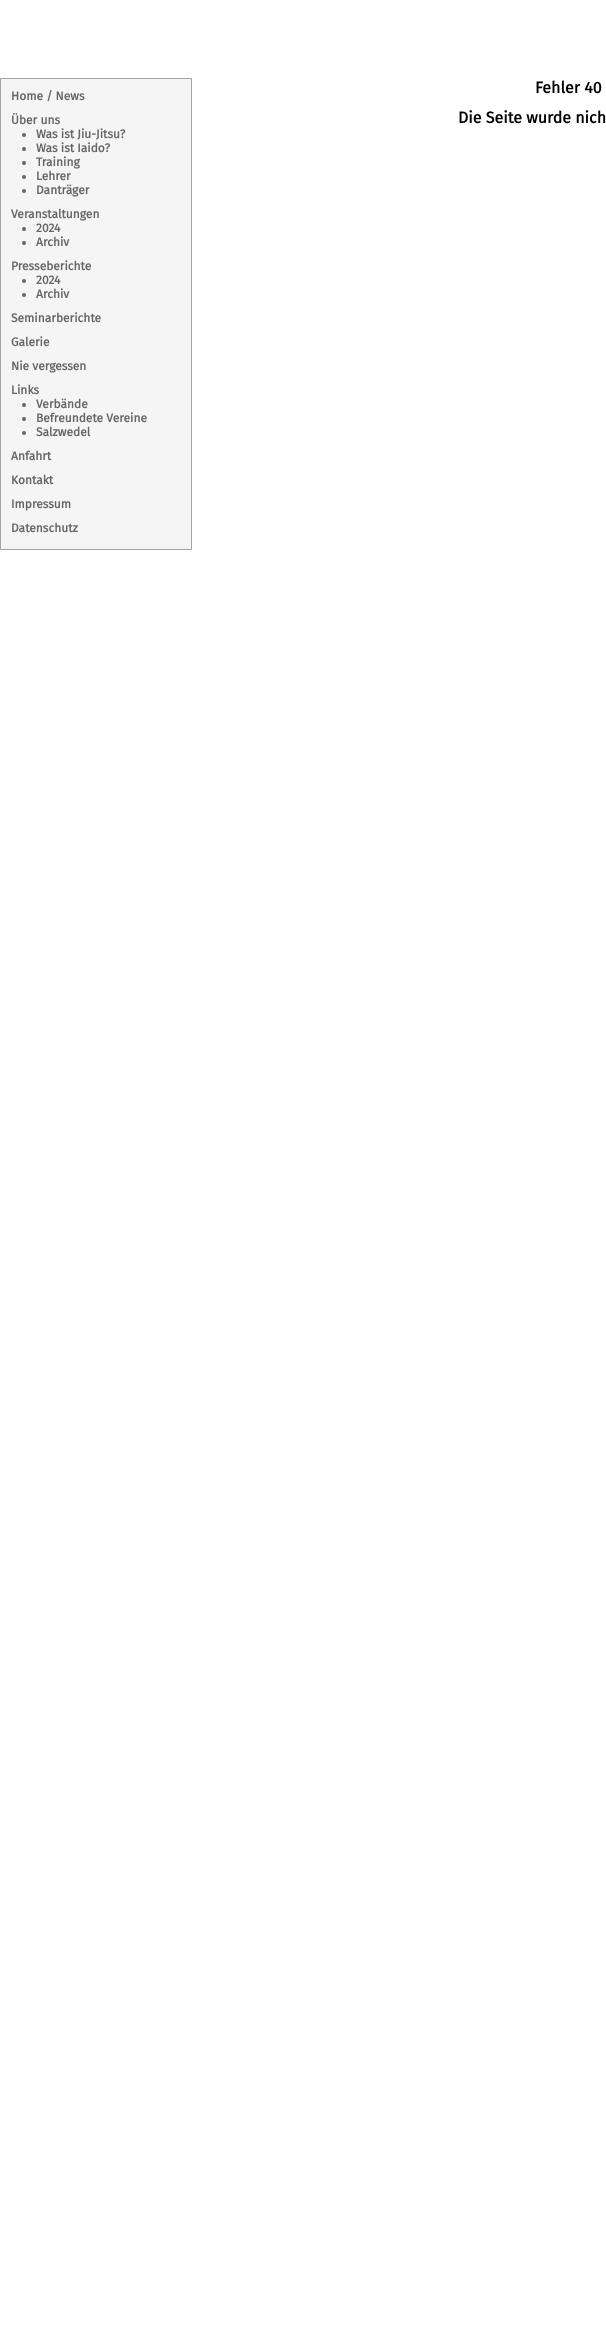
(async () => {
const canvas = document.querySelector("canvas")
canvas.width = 606
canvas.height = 2343
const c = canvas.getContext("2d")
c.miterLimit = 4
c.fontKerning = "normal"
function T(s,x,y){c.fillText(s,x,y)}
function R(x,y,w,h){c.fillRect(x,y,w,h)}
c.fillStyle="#fff"
R(0,0,606,2343)
c.fillStyle="#f5f5f5"
c.beginPath()
c.rect(.5,78.5,191,471)
c.fill()
c.strokeStyle="#a3a3a3"
c.stroke()
c.font="bold 12px Fira Sans"
c.fillStyle="#666"
T("Home / News",11,100)
T("Über uns",11,124)
c.beginPath()
c.arc(24,135,2,0,7)
c.fill()
T("Was ist Jiu-Jitsu?",36,138)
c.beginPath()
c.arc(24,149,2,0,7)
c.fill()
T("Was ist Iaido?",36,152)
c.beginPath()
c.arc(24,163,2,0,7)
c.fill()
T("Training",36,166)
c.beginPath()
c.arc(24,177,2,0,7)
c.fill()
T("Lehrer",36,180)
c.beginPath()
c.arc(24,191,2,0,7)
c.fill()
T("Danträger",36,194)
T("Veranstaltungen",11,218)
c.beginPath()
c.arc(24,229,2,0,7)
c.fill()
T("2024",36,232)
c.beginPath()
c.arc(24,243,2,0,7)
c.fill()
T("Archiv",36,246)
T("Presseberichte",11,270)
c.beginPath()
c.arc(24,281,2,0,7)
c.fill()
T("2024",36,284)
c.beginPath()
c.arc(24,295,2,0,7)
c.fill()
T("Archiv",36,298)
T("Seminarberichte",11,322)
T("Galerie",11,346)
T("Nie vergessen",11,370)
T("Links",11,394)
c.beginPath()
c.arc(24,405,2,0,7)
c.fill()
T("Verbände",36,408)
c.beginPath()
c.arc(24,419,2,0,7)
c.fill()
T("Befreundete Vereine",36,422)
c.beginPath()
c.arc(24,433,2,0,7)
c.fill()
T("Salzwedel",36,436)
T("Anfahrt",11,460)
T("Kontakt",11,484)
T("Impressum",11,508)
T("Datenschutz",11,532)
c.font="bold 16px Fira Sans"
c.fillStyle="#000"
T("Fehler 40",535,93)
T("Die Seite wurde nich",458,123)
})()
